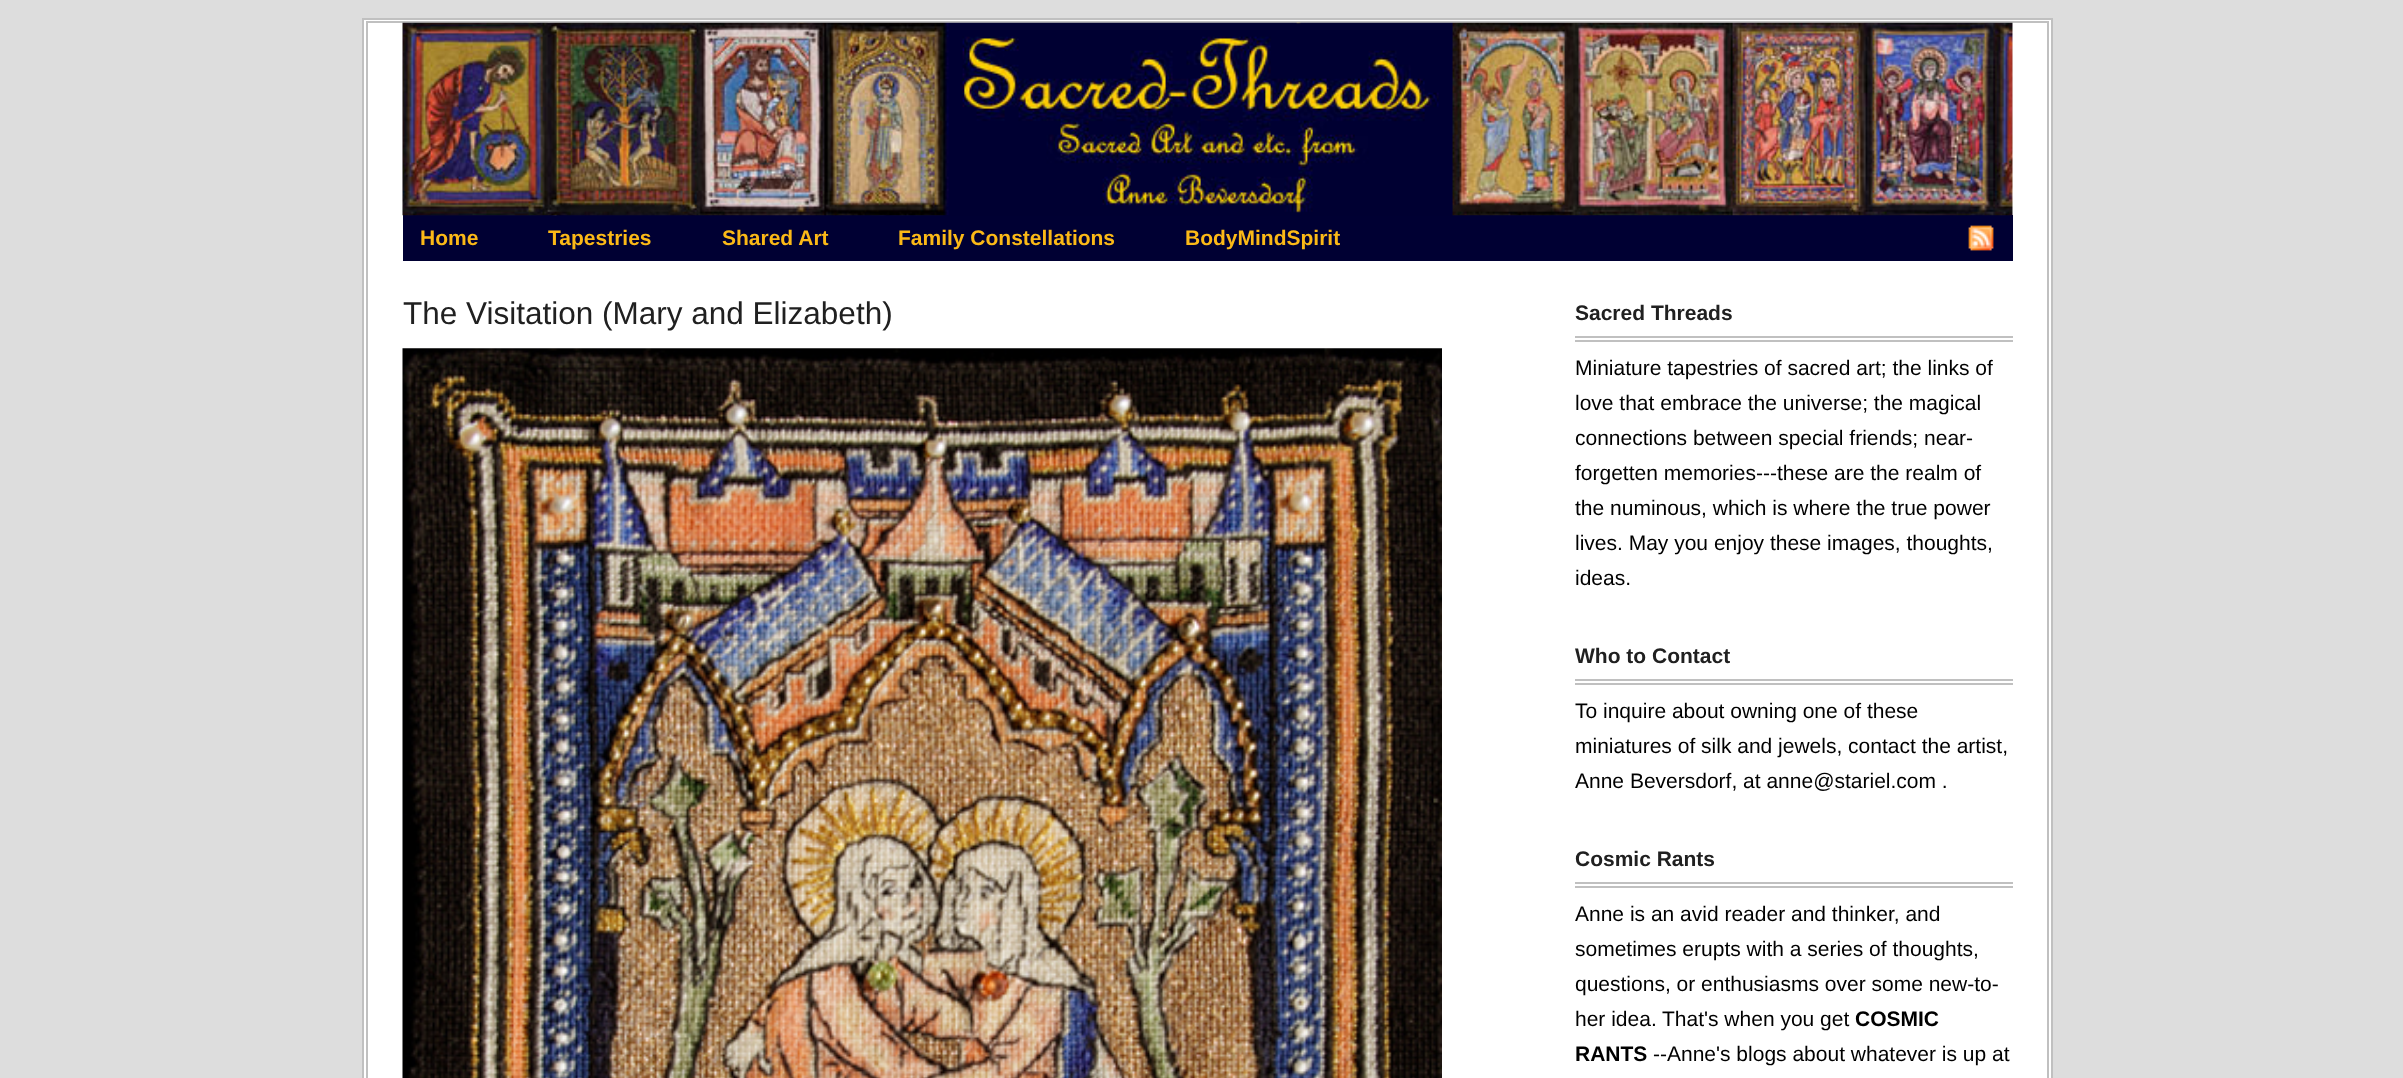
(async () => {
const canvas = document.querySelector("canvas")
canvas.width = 2403
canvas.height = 1078
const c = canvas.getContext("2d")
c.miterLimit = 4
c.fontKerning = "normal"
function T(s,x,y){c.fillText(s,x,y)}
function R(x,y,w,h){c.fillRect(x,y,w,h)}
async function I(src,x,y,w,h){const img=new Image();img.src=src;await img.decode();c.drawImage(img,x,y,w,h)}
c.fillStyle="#ddd"
R(0,0,2403,1078)
c.fillStyle="#fff"
c.beginPath()
c.rect(363,19,1689,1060)
c.fill()
c.strokeStyle="#c0c0c0"
c.lineWidth=2
c.stroke()
c.strokeRect(367,22,1681,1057)
c.fillStyle="#003"
R(403,215,1610,46)
await I("1.png",402,22,1611,194)
c.font="bold 21px Liberation Sans"
c.fillStyle="#fbb917"
T("Home",420,245)
T("Tapestries",548,245)
T("Shared Art",722,245)
T("Family Constellations",898,245)
T("BodyMindSpirit",1185,245)
await I("2.png",1968,225,26,26)
c.font="31.5px Liberation Sans"
c.fillStyle="#202020"
T("The Visitation (Mary and Elizabeth)",403,324)
await I("3.png",402,348,1040,730)
c.fillStyle="#c0c0c0"
R(1575,336,438,2)
R(1575,340,438,2)
c.font="bold 21px Liberation Sans"
c.fillStyle="#202020"
T("Sacred Threads",1575,320)
c.font="21px Liberation Sans"
c.fillStyle="#000"
T("Miniature tapestries of sacred art; the links of",1575,375)
T("love that embrace the universe; the magical",1575,410)
T("connections between special friends; near-",1575,445)
T("forgetten memories---these are the realm of",1575,480)
T("the numinous, which is where the true power",1575,515)
T("lives. May you enjoy these images, thoughts,",1575,550)
T("ideas.",1575,585)
c.fillStyle="#c0c0c0"
R(1575,679,438,2)
R(1575,683,438,2)
c.font="bold 21px Liberation Sans"
c.fillStyle="#202020"
T("Who to Contact",1575,663)
c.font="21px Liberation Sans"
c.fillStyle="#000"
T("To inquire about owning one of these",1575,718)
T("miniatures of silk and jewels, contact the artist,",1575,753)
T("Anne Beversdorf, at anne@stariel.com .",1575,788)
c.fillStyle="#c0c0c0"
R(1575,882,438,2)
R(1575,886,438,2)
c.font="bold 21px Liberation Sans"
c.fillStyle="#202020"
T("Cosmic Rants",1575,866)
c.font="21px Liberation Sans"
c.fillStyle="#000"
T("Anne is an avid reader and thinker, and",1575,921)
T("sometimes erupts with a series of thoughts,",1575,956)
T("questions, or enthusiasms over some new-to-",1575,991)
T("her idea.",1575,1026)
T("That's when you get",1662,1026)
c.font="bold 21px Liberation Sans"
T("COSMIC",1855,1026)
T("RANTS",1575,1061)
c.font="21px Liberation Sans"
T("--Anne's blogs about whatever is up at",1653,1061)
})()
